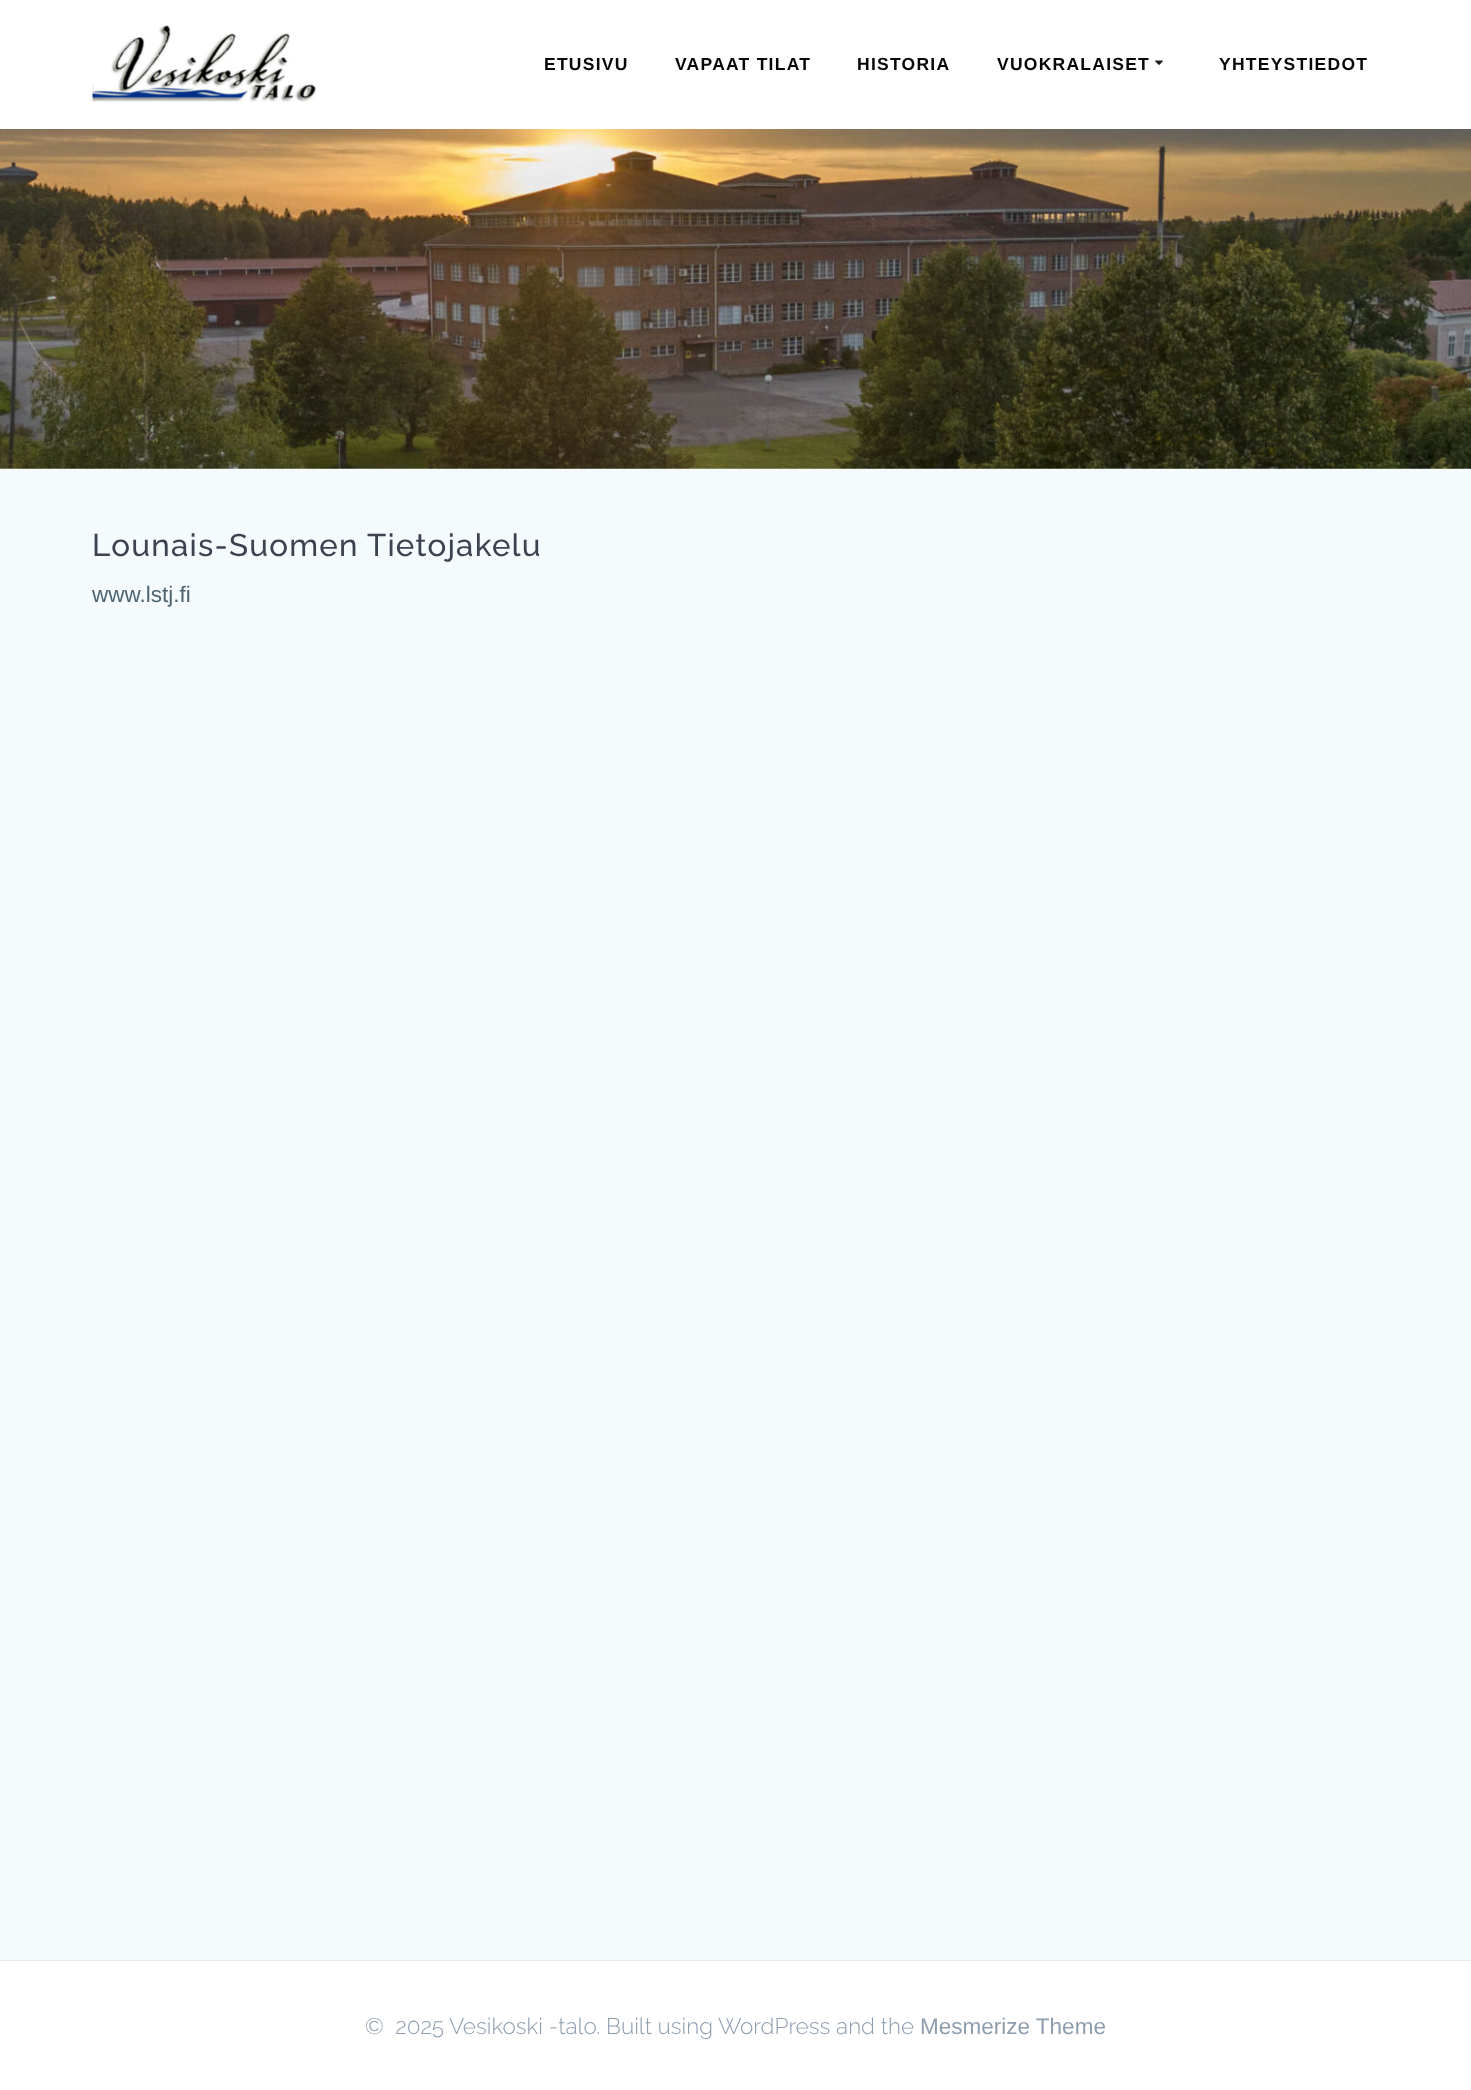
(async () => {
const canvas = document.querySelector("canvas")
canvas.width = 1471
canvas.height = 2090
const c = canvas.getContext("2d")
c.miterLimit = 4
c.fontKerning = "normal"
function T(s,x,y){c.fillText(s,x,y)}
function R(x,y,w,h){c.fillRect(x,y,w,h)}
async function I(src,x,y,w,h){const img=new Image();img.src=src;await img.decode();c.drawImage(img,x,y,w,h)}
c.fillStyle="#fff"
R(0,0,1471,2090)
await I("1.png",92,25,224,77)
c.letterSpacing="1.25px"
c.font="bold 17.5px Liberation Sans"
c.fillStyle="#050606"
T("ETUSIVU",544,70)
T("VAPAAT TILAT",675,70)
T("HISTORIA",857,70)
T("VUOKRALAISET",997,70)
await I("2.png",1155,60,8,5)
T("YHTEYSTIEDOT",1219,70)
await I("3.png",0,129,1471,340)
c.fillStyle="#f5fafd"
R(0,469,1471,1491)
c.font="500 31.25px Raleway"
c.fillStyle="#3c424f"
T("Lounais-Suomen Tietojakelu",92,556)
c.letterSpacing="0px"
c.font="22.5px Liberation Sans"
c.fillStyle="#4e6470"
T("www.lstj.fi",92,602)
c.fillStyle="#e8e8e8"
R(0,1960,1471,1)
c.font="300 22.5px Raleway"
c.fillStyle="#8e9dae"
T("©  2025 Vesikoski -talo. Built using WordPress and the",365,2034)
c.font="22.5px Liberation Sans"
T("Mesmerize Theme",920,2034)
})()
